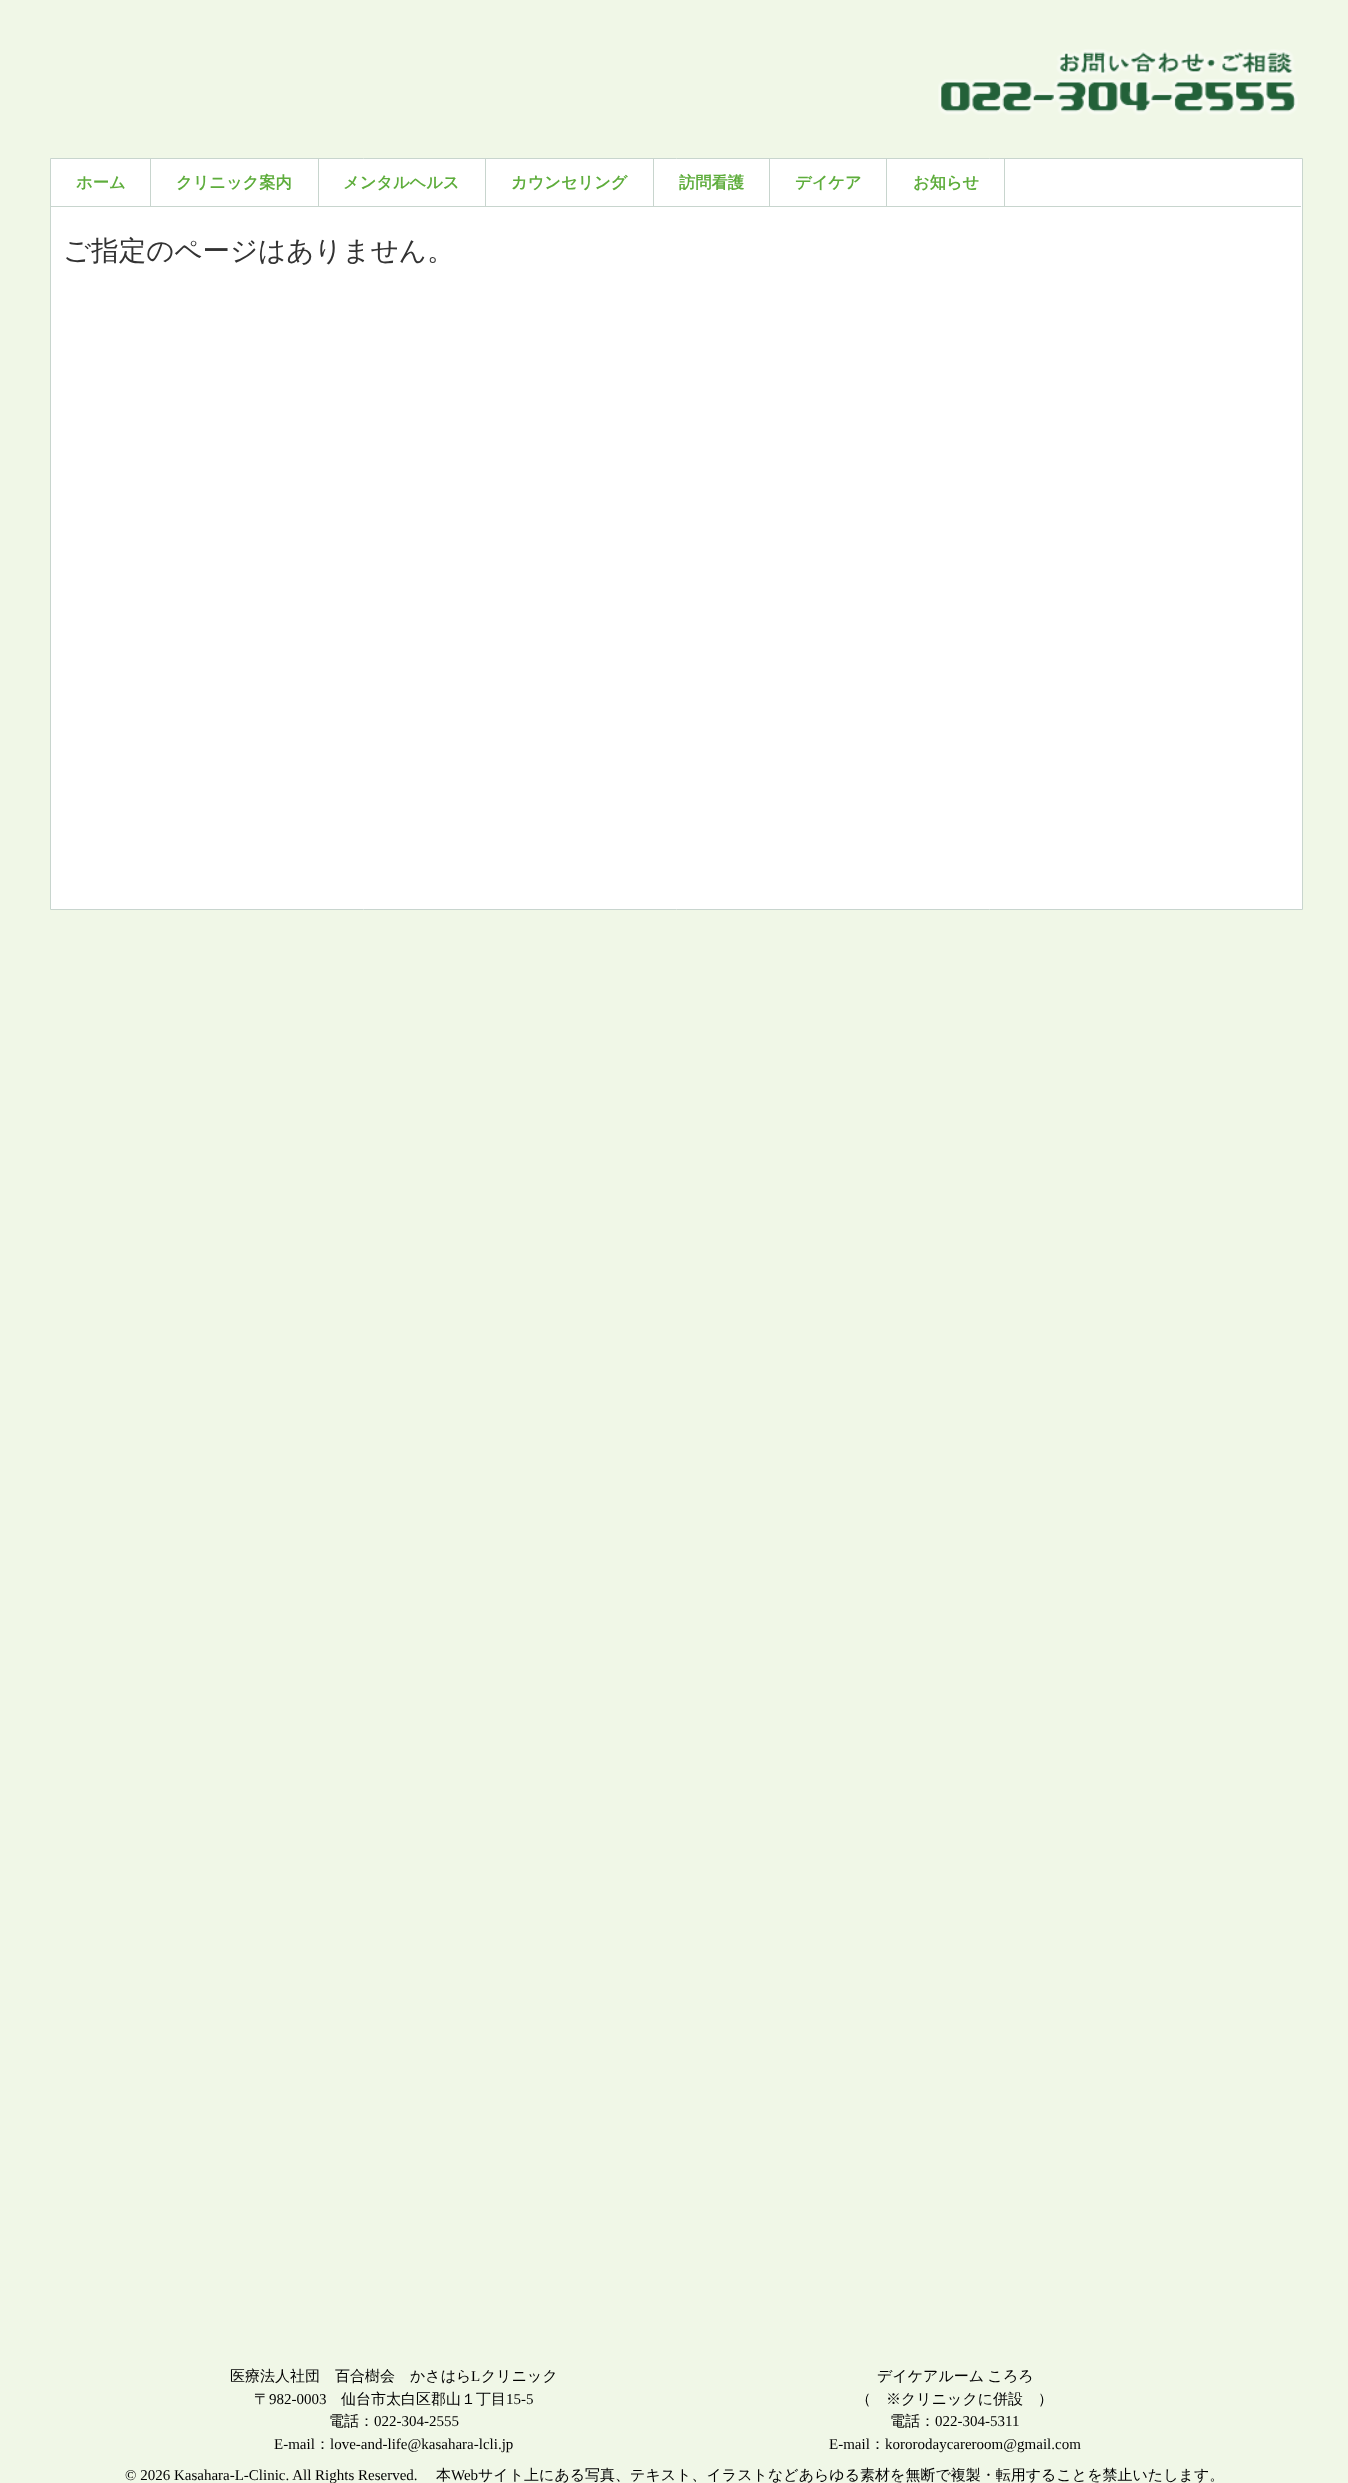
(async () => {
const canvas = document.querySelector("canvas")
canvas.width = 1348
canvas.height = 2483
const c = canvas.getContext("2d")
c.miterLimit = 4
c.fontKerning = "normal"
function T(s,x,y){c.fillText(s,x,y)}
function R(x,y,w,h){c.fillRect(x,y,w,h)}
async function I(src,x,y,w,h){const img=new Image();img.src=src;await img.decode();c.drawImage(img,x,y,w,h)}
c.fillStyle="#f0f7e7"
R(0,0,1348,2483)
await I("1.png",938,49,360,66)
c.fillStyle="#fff"
c.beginPath()
c.rect(50.5,158.5,1252,751)
c.fill()
c.strokeStyle="#c8d5ce"
c.stroke()
c.fillStyle="#c8d5ce"
R(51,206,1250,1)
R(150,159,1,47)
c.font="bold 16.25px WenQuanYi Zen Hei"
c.fillStyle="#5ead3c"
T("ホーム",76,188)
c.fillStyle="#c8d5ce"
R(318,159,1,47)
c.fillStyle="#5ead3c"
T("クリニック案内",176,188)
c.fillStyle="#c8d5ce"
R(485,159,1,47)
c.fillStyle="#5ead3c"
T("メンタルヘルス",343,188)
c.fillStyle="#c8d5ce"
R(653,159,1,47)
c.fillStyle="#5ead3c"
T("カウンセリング",511,188)
c.fillStyle="#c8d5ce"
R(769,159,1,47)
c.fillStyle="#5ead3c"
T("訪問看護",679,188)
c.fillStyle="#c8d5ce"
R(886,159,1,47)
c.fillStyle="#5ead3c"
T("デイケア",795,188)
c.fillStyle="#c8d5ce"
R(1004,159,1,47)
c.fillStyle="#5ead3c"
T("お知らせ",913,188)
c.font="500 27.5px WenQuanYi Zen Hei"
c.fillStyle="#333"
T("ご指定のページはありません。",63,260)
c.font="500 15px WenQuanYi Zen Hei"
c.fillStyle="#000"
T("医療法人社団　百合樹会　かさはら",230,2381)
c.font="15px Liberation Serif"
T("L",471,2381)
c.font="500 15px WenQuanYi Zen Hei"
T("クリニック",481,2381)
T("〒",254,2404)
c.font="15px Liberation Serif"
T("982-0003",269,2404)
c.font="500 15px WenQuanYi Zen Hei"
T("仙台市太白区郡山１丁目",341,2404)
c.font="15px Liberation Serif"
T("15-5",506,2404)
c.font="500 15px WenQuanYi Zen Hei"
T("電話：",329,2426)
c.font="15px Liberation Serif"
T("022-304-2555",374,2426)
T("E-mail",274,2449)
c.font="500 15px WenQuanYi Zen Hei"
T("：",315,2449)
c.font="15px Liberation Serif"
T("love-and-life@kasahara-lcli.jp",330,2449)
c.wordSpacing="-1px"
c.font="500 15px WenQuanYi Zen Hei"
T("デイケアルーム ころろ",877,2381)
c.wordSpacing="0px"
T("（　※クリニックに併設　）",856,2404)
T("電話：",890,2426)
c.font="15px Liberation Serif"
T("022-304-5311",935,2426)
T("E-mail",829,2449)
c.font="500 15px WenQuanYi Zen Hei"
T("：",870,2449)
c.font="15px Liberation Serif"
T("kororodaycareroom@gmail.com",885,2449)
T("© 2026 Kasahara-L-Clinic. All Rights Reserved.",125,2480)
c.font="500 15px WenQuanYi Zen Hei"
T("本",436,2480)
c.font="15px Liberation Serif"
T("Web",451,2480)
c.font="500 15px WenQuanYi Zen Hei"
T("サイト上にある写真、テキスト、イラストなどあらゆる素材を無断で複製・転用することを禁止いたします。",478,2480)
})()
